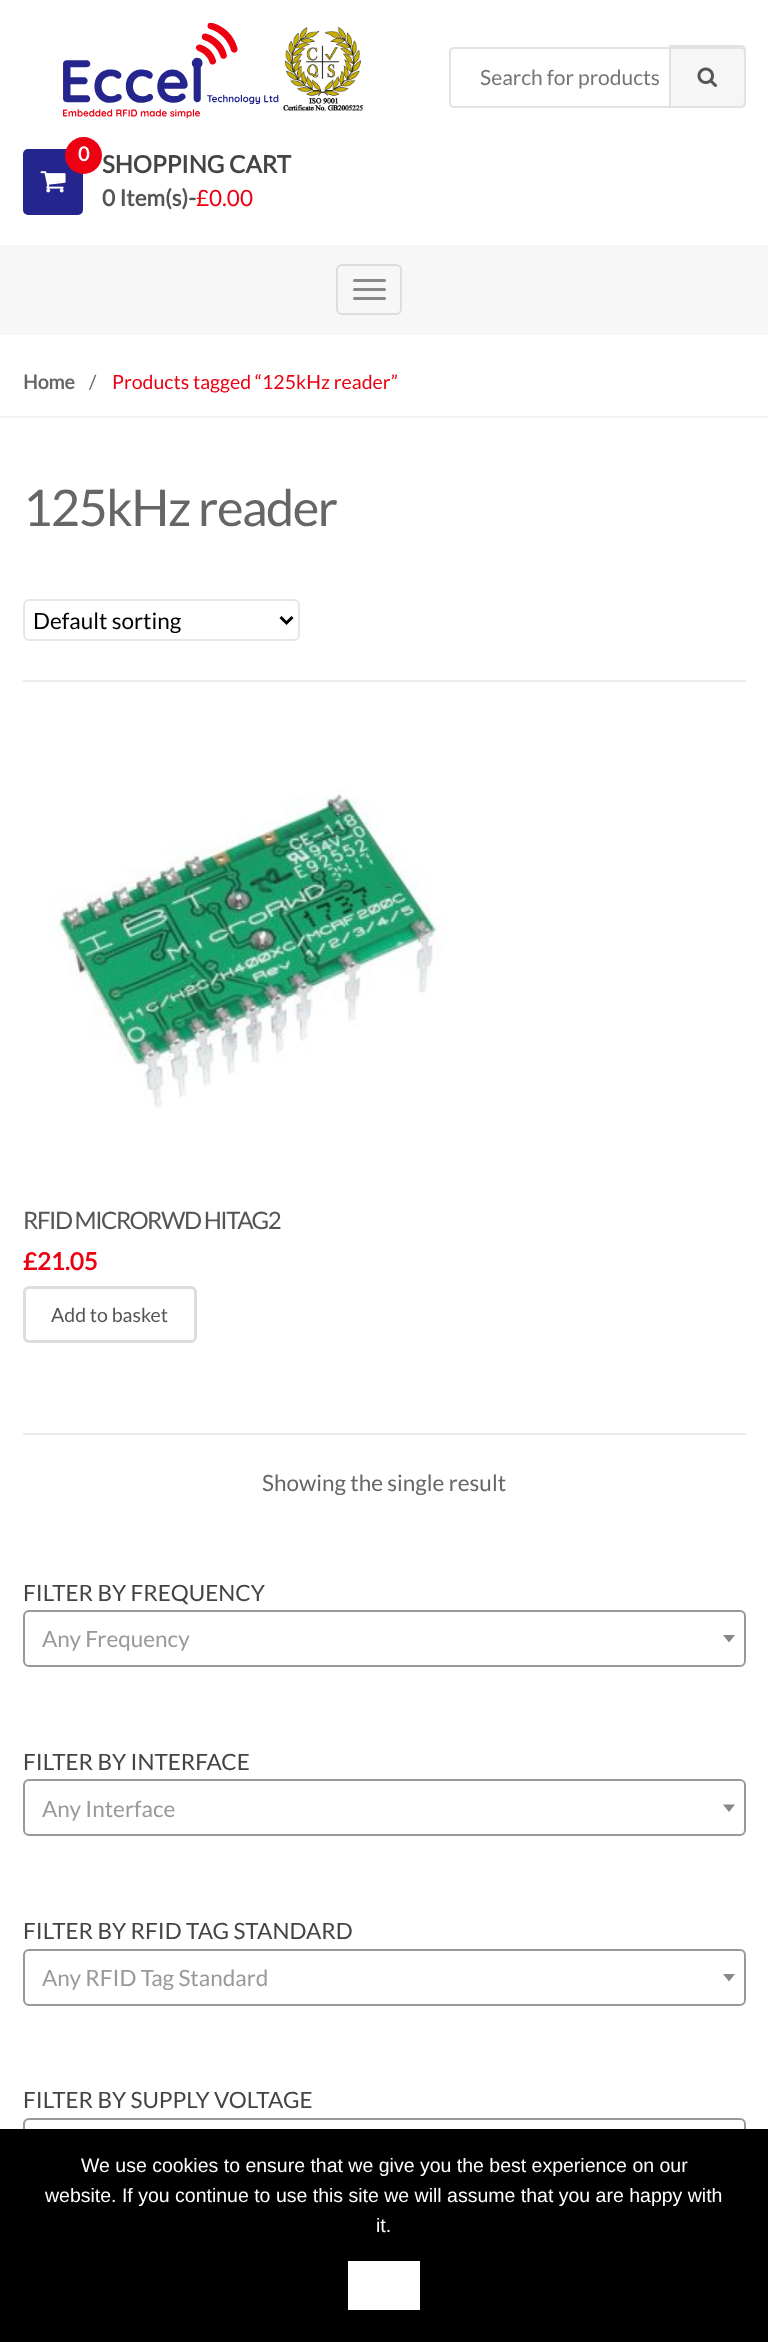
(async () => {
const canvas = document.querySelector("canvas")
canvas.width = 768
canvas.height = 2342
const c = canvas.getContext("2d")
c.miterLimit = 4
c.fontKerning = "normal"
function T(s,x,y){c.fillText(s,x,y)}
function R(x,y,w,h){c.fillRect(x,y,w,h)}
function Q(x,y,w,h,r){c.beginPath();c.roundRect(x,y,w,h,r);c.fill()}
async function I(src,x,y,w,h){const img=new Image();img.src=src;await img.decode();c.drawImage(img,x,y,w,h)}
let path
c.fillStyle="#fff"
R(0,0,768,2342)
await I("1.png",63,23,300,96)
c.fillStyle="#f6f6f6"
c.beginPath()
c.roundRect(670,46,75,61,[0,4,4,0])
c.fill()
c.strokeStyle="#e2e2e2"
c.lineWidth=2
c.stroke()
await I("2.png",697,67,20,20)
c.beginPath()
c.roundRect(450,48,295,59,4)
c.stroke()
c.font="21px Lato"
c.fillStyle="#757575"
T("Search for products",480,85)
c.fillStyle="#24268d"
Q(23,149,60,66,5)
await I("3.png",40,171,26,22)
c.fillStyle="#ec0011"
c.beginPath()
c.arc(83.5,155.5,18.5,0,7)
c.fill()
c.font="bold 19.5px Lato"
c.fillStyle="#fff"
T("0",78,161)
c.font="bold 24px Lato"
c.fillStyle="#444"
T("SHOPPING CART",102,173)
c.font="bold 22.5px Lato"
c.fillStyle="#555"
T("0 Item(s)-",102,206)
c.font="22.5px Lato"
c.fillStyle="#ec0011"
T("£0.00",196,206)
c.fillStyle="#f7f7f7"
R(0,245,768,90)
c.beginPath()
c.roundRect(337,265,64,49,5)
c.strokeStyle="#ddd"
c.stroke()
c.fillStyle="#888"
Q(353,279,33,3,1.5)
Q(353,288,33,3,1.5)
Q(353,297,33,3,1.5)
c.fillStyle="#f2f2f2"
R(0,416,768,2)
c.font="bold 19.5px Lato"
c.fillStyle="#666"
T("Home",23,389)
c.font="19.5px Lato"
T("/",89,389)
c.fillStyle="#ec0011"
T("Products tagged “125kHz reader”",112,389)
c.letterSpacing="-1.5px"
c.font="50.5px Lato"
c.fillStyle="#666"
T("125kHz reader",23,526)
c.beginPath()
c.roundRect(24,600,275,40,5)
c.strokeStyle="#e6e6e6"
c.stroke()
path = new Path2D("M280.5 617l6 6l6-6")
c.strokeStyle="#000"
c.lineWidth=3
c.stroke(path)
c.letterSpacing="0px"
c.font="22.5px Lato"
c.fillStyle="#000"
T("Default sorting",33,629)
c.fillStyle="#ececec"
R(23,680,723,2)
R(23,1433,723,2)
await I("4.png",48,786,401,323)
c.letterSpacing="-1.5px"
c.font="24px Lato"
c.fillStyle="#555"
T("RFID MICRORWD HITAG2",23,1229)
c.letterSpacing="0px"
c.font="bold 24px Lato"
c.fillStyle="#ec0011"
T("£21.05",23,1270)
c.beginPath()
c.roundRect(24.5,1287.5,171,54,4.5)
c.strokeStyle="#ddd"
c.stroke()
c.font="19.5px Lato"
c.fillStyle="#555"
T("Add to basket",51,1322)
c.font="22.5px Lato"
c.fillStyle="#666"
T("Showing the single result",262,1491)
c.fillStyle="#444"
T("FILTER BY FREQUENCY",23,1601)
c.beginPath()
c.roundRect(24,1611,721,55,5)
c.strokeStyle="#999"
c.lineWidth=2
c.stroke()
c.fillStyle="#999"
T("Any Frequency",42,1647)
c.fillStyle="#888"
path = new Path2D("M723 1635h12l-6 7.5z")
c.fill(path)
c.fillStyle="#444"
T("FILTER BY INTERFACE",23,1770)
c.beginPath()
c.roundRect(24,1780,721,55,5)
c.stroke()
c.fillStyle="#999"
T("Any Interface",42,1817)
c.fillStyle="#888"
path = new Path2D("M723 1804.5h12l-6 7.5z")
c.fill(path)
c.fillStyle="#444"
T("FILTER BY RFID TAG STANDARD",23,1939)
c.beginPath()
c.roundRect(24,1950,721,55,5)
c.stroke()
c.fillStyle="#999"
T("Any RFID Tag Standard",42,1986)
c.fillStyle="#888"
path = new Path2D("M723 1974h12l-6 7.5z")
c.fill(path)
c.fillStyle="#444"
T("FILTER BY SUPPLY VOLTAGE",23,2108)
c.beginPath()
c.roundRect(24,2119,721,55,5)
c.stroke()
c.fillStyle="#000"
R(0,2129,768,213)
c.font="19.5px Liberation Sans"
c.fillStyle="#fff"
T("We use cookies to ensure that we give you the best experience on our",81,2172)
T("website. If you continue to use this site we will assume that you are happy with",45,2202)
T("it.",376,2232)
R(348,2261,72,49)
})()
